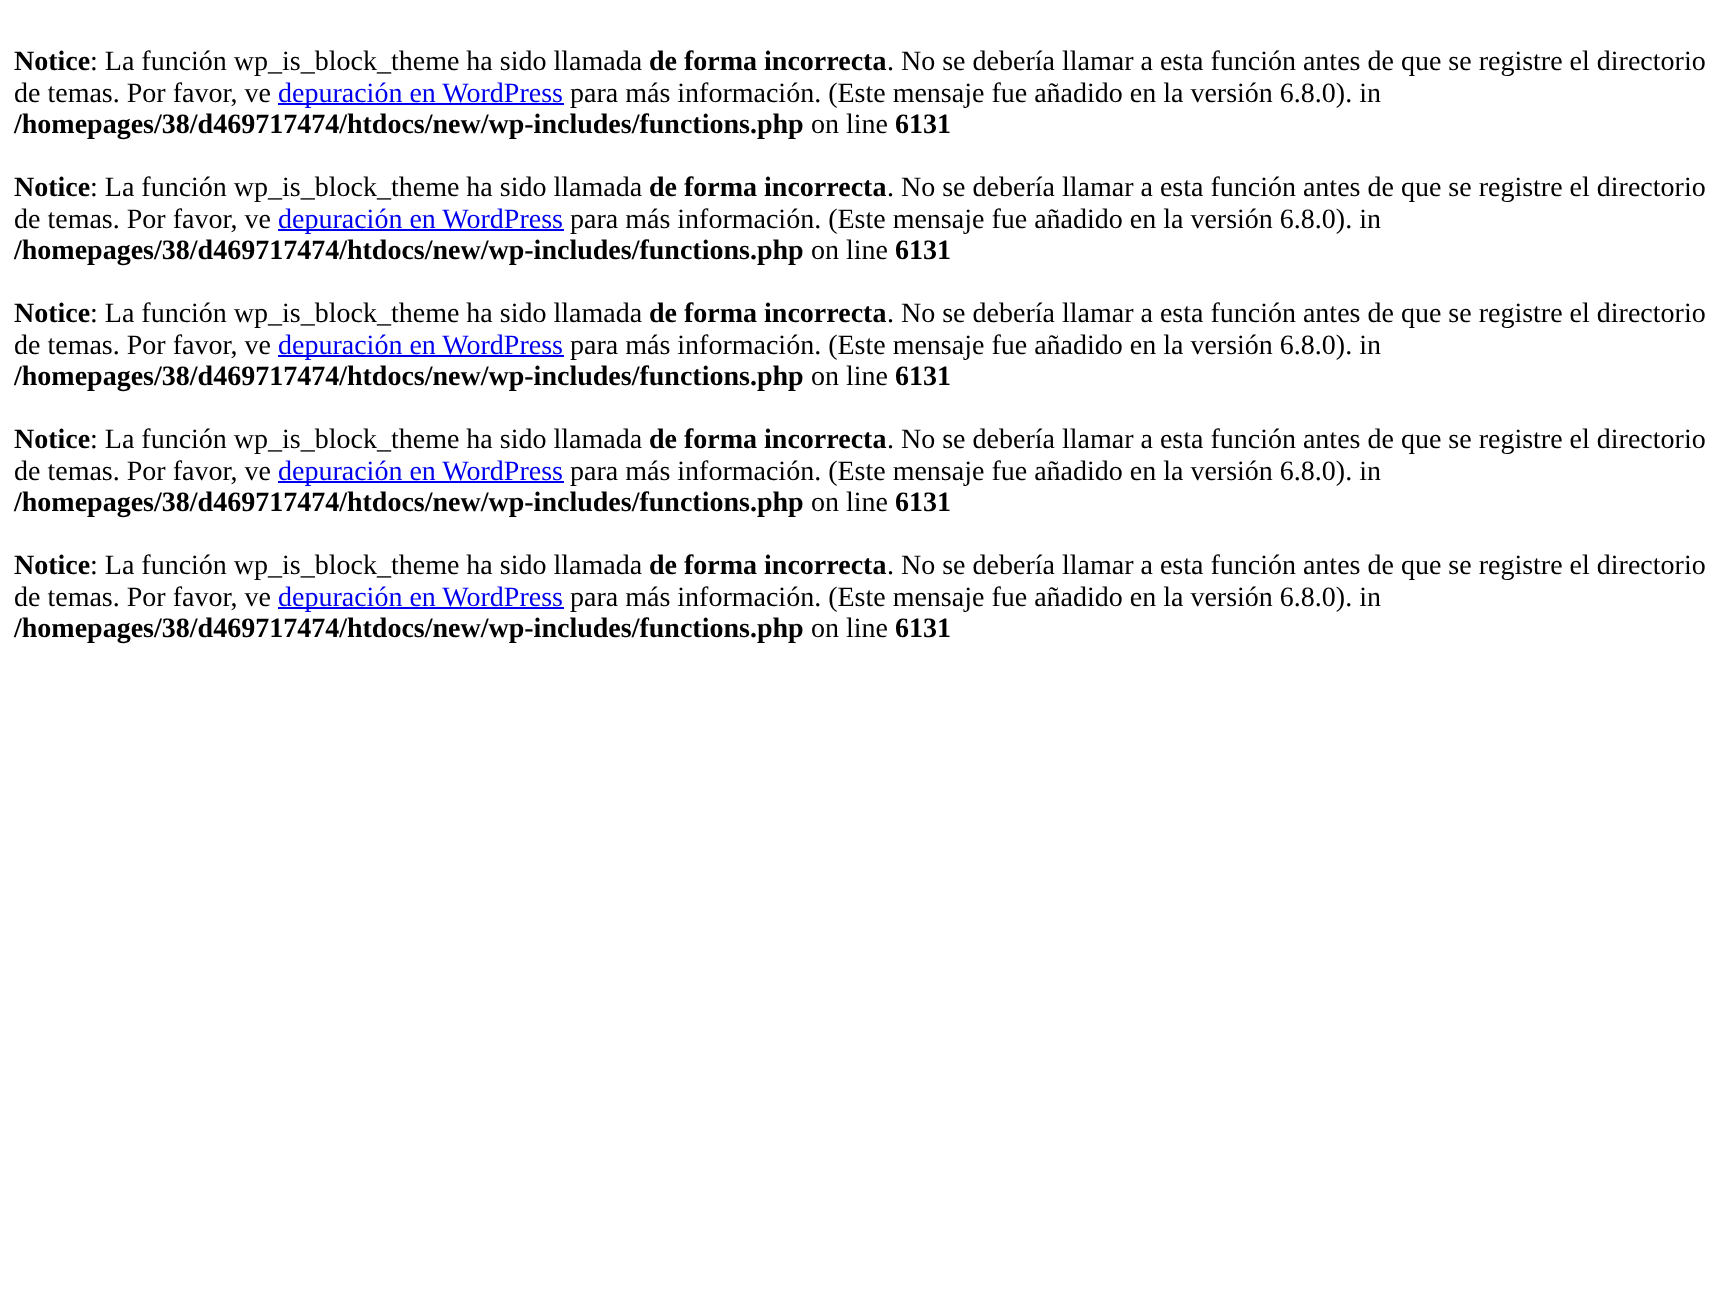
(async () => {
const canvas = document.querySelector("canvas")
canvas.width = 1723
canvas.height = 1309
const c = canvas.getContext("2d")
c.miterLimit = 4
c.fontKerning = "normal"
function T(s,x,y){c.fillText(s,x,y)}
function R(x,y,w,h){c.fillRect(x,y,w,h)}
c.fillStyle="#fff"
R(0,0,1723,1309)
c.font="bold 28px Liberation Serif"
c.fillStyle="#000"
T("Notice",14,70)
c.font="28px Liberation Serif"
T(": La función wp_is_block_theme ha sido llamada",90,70)
c.font="bold 28px Liberation Serif"
T("de forma incorrecta",649,70)
c.font="28px Liberation Serif"
T(". No se debería llamar a esta función antes de que se registre el directorio",887,70)
T("de temas. Por favor, ve",14,102)
c.fillStyle="#00e"
R(278,103,286,2)
T("depuración en WordPress",278,102)
c.fillStyle="#000"
T("para más información. (Este mensaje fue añadido en la versión 6.8.0). in",570,102)
c.font="bold 28px Liberation Serif"
T("/homepages/38/d469717474/htdocs/new/wp-includes/functions.php",14,133)
c.font="28px Liberation Serif"
T("on line",811,133)
c.font="bold 28px Liberation Serif"
T("6131",895,133)
T("Notice",14,196)
c.font="28px Liberation Serif"
T(": La función wp_is_block_theme ha sido llamada",90,196)
c.font="bold 28px Liberation Serif"
T("de forma incorrecta",649,196)
c.font="28px Liberation Serif"
T(". No se debería llamar a esta función antes de que se registre el directorio",887,196)
T("de temas. Por favor, ve",14,228)
c.fillStyle="#00e"
R(278,229,286,2)
T("depuración en WordPress",278,228)
c.fillStyle="#000"
T("para más información. (Este mensaje fue añadido en la versión 6.8.0). in",570,228)
c.font="bold 28px Liberation Serif"
T("/homepages/38/d469717474/htdocs/new/wp-includes/functions.php",14,259)
c.font="28px Liberation Serif"
T("on line",811,259)
c.font="bold 28px Liberation Serif"
T("6131",895,259)
T("Notice",14,322)
c.font="28px Liberation Serif"
T(": La función wp_is_block_theme ha sido llamada",90,322)
c.font="bold 28px Liberation Serif"
T("de forma incorrecta",649,322)
c.font="28px Liberation Serif"
T(". No se debería llamar a esta función antes de que se registre el directorio",887,322)
T("de temas. Por favor, ve",14,354)
c.fillStyle="#00e"
R(278,355,286,2)
T("depuración en WordPress",278,354)
c.fillStyle="#000"
T("para más información. (Este mensaje fue añadido en la versión 6.8.0). in",570,354)
c.font="bold 28px Liberation Serif"
T("/homepages/38/d469717474/htdocs/new/wp-includes/functions.php",14,385)
c.font="28px Liberation Serif"
T("on line",811,385)
c.font="bold 28px Liberation Serif"
T("6131",895,385)
T("Notice",14,448)
c.font="28px Liberation Serif"
T(": La función wp_is_block_theme ha sido llamada",90,448)
c.font="bold 28px Liberation Serif"
T("de forma incorrecta",649,448)
c.font="28px Liberation Serif"
T(". No se debería llamar a esta función antes de que se registre el directorio",887,448)
T("de temas. Por favor, ve",14,480)
c.fillStyle="#00e"
R(278,481,286,2)
T("depuración en WordPress",278,480)
c.fillStyle="#000"
T("para más información. (Este mensaje fue añadido en la versión 6.8.0). in",570,480)
c.font="bold 28px Liberation Serif"
T("/homepages/38/d469717474/htdocs/new/wp-includes/functions.php",14,511)
c.font="28px Liberation Serif"
T("on line",811,511)
c.font="bold 28px Liberation Serif"
T("6131",895,511)
T("Notice",14,574)
c.font="28px Liberation Serif"
T(": La función wp_is_block_theme ha sido llamada",90,574)
c.font="bold 28px Liberation Serif"
T("de forma incorrecta",649,574)
c.font="28px Liberation Serif"
T(". No se debería llamar a esta función antes de que se registre el directorio",887,574)
T("de temas. Por favor, ve",14,606)
c.fillStyle="#00e"
R(278,607,286,2)
T("depuración en WordPress",278,606)
c.fillStyle="#000"
T("para más información. (Este mensaje fue añadido en la versión 6.8.0). in",570,606)
c.font="bold 28px Liberation Serif"
T("/homepages/38/d469717474/htdocs/new/wp-includes/functions.php",14,637)
c.font="28px Liberation Serif"
T("on line",811,637)
c.font="bold 28px Liberation Serif"
T("6131",895,637)
})()
